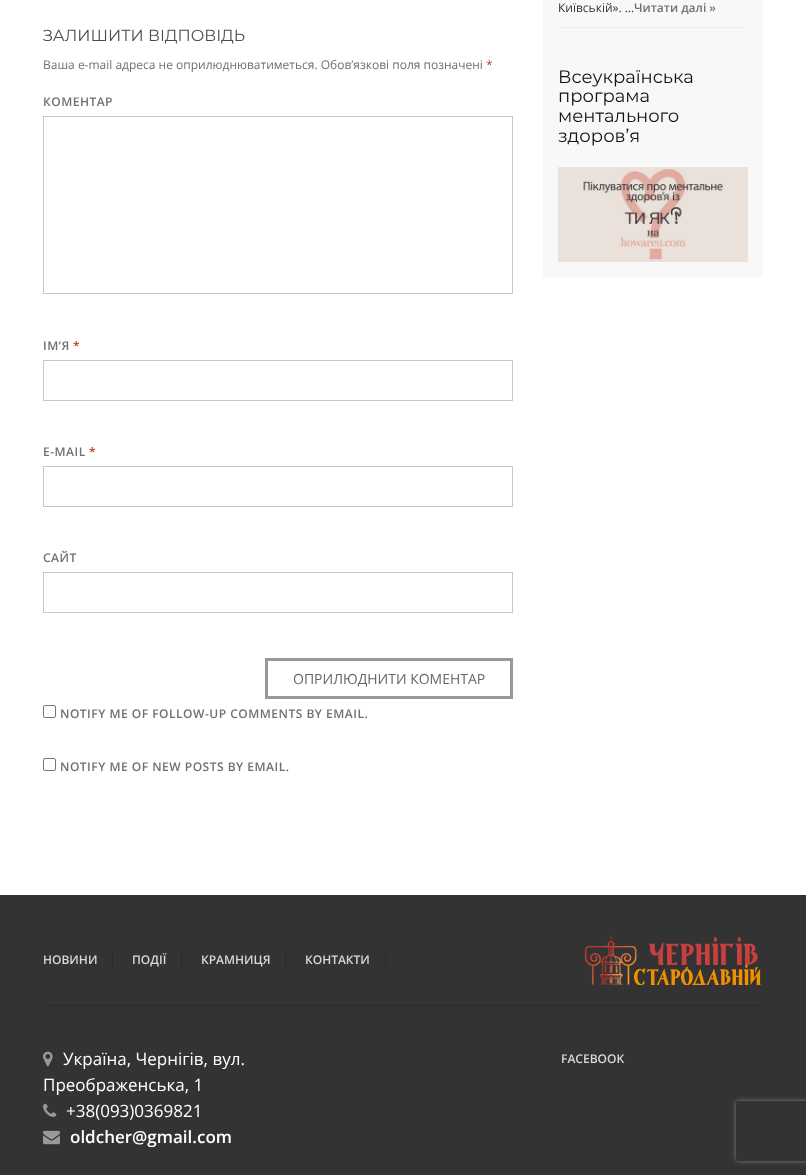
(async () => {
const canvas = document.querySelector("canvas")
canvas.width = 806
canvas.height = 1175
const c = canvas.getContext("2d")
c.miterLimit = 4
c.fontKerning = "normal"
function T(s,x,y){c.fillText(s,x,y)}
function R(x,y,w,h){c.fillRect(x,y,w,h)}
async function I(src,x,y,w,h){const img=new Image();img.src=src;await img.decode();c.drawImage(img,x,y,w,h)}
let path
c.fillStyle="#fff"
R(0,0,806,1175)
c.font="16px Montserrat"
c.fillStyle="#4c4c4c"
T("ЗАЛИШИТИ ВІДПОВІДЬ",43,41)
c.font="12px Open Sans"
c.fillStyle="#707070"
T("Ваша e-mail адреса не оприлюднюватиметься. Обов’язкові поля позначені",43,69)
c.fillStyle="#c0392b"
T("*",486,69)
c.letterSpacing="0.5px"
c.font="600 12px Open Sans"
c.fillStyle="#707070"
T("КОМЕНТАР",43,106)
c.strokeStyle="#c7c7c7"
c.strokeRect(43.5,116.5,469,177)
T("ІМ’Я",43,350)
c.fillStyle="#c0392b"
T("*",73,350)
c.strokeRect(43.5,360.5,469,40)
c.fillStyle="#707070"
T("E-MAIL",43,456)
c.fillStyle="#c0392b"
T("*",89,456)
c.strokeRect(43.5,466.5,469,40)
c.fillStyle="#707070"
T("САЙТ",43,562)
c.strokeRect(43.5,572.5,469,40)
c.strokeStyle="#999"
c.lineWidth=3
c.strokeRect(266.5,659.5,245,38)
c.letterSpacing="0px"
c.font="14px Open Sans"
c.fillStyle="#666"
T("ОПРИЛЮДНИТИ КОМЕНТАР",293,684)
c.beginPath()
c.roundRect(43.5,705.5,12,12,1.5)
c.strokeStyle="#767676"
c.lineWidth=1
c.stroke()
c.letterSpacing="0.5px"
c.font="600 12px Open Sans"
c.fillStyle="#707070"
T("NOTIFY ME OF FOLLOW-UP COMMENTS BY EMAIL.",60,718)
c.beginPath()
c.roundRect(43.5,758.5,12,12,1.5)
c.stroke()
T("NOTIFY ME OF NEW POSTS BY EMAIL.",60,771)
c.fillStyle="#f8f8f8"
R(543,0,220,277)
c.fillStyle="#eee"
R(558,27,190,1)
c.letterSpacing="0px"
c.font="12px Open Sans"
c.fillStyle="#333"
T("Київській». …",558,12)
c.font="600 12px Open Sans"
c.fillStyle="#707070"
T("Читати далі »",634,12)
c.font="18px Montserrat"
c.fillStyle="#111"
T("Всеукраїнська",558,83)
T("програма",558,102)
T("ментального",558,122)
T("здоров’я",558,142)
await I("1.png",558,167,190,95)
c.fillStyle="#333"
R(0,895,806,280)
c.fillStyle="#2b2b2b"
R(112,950,1,20)
c.font="600 12px Open Sans"
c.fillStyle="#d8d8d8"
T("НОВИНИ",43,964)
c.fillStyle="#2b2b2b"
R(181,950,1,20)
c.fillStyle="#d8d8d8"
T("ПОДІЇ",132,964)
c.fillStyle="#2b2b2b"
R(285,950,1,20)
c.fillStyle="#d8d8d8"
T("КРАМНИЦЯ",201,964)
c.fillStyle="#2b2b2b"
R(385,950,1,20)
c.fillStyle="#d8d8d8"
T("КОНТАКТИ",305,964)
await I("2.png",585,935,176,50)
c.fillStyle="#2b2b2b"
R(43,1005,720,1)
await I("3.png",43,1051,10,16)
c.font="17px Open Sans"
c.fillStyle="#fff"
T("Україна, Чернігів, вул.",63,1065)
T("Преображенська, 1",43,1091)
await I("4.png",43,1103,14,14)
T("+38(093)0369821",66,1117)
await I("5.png",43,1130,17,15)
c.font="600 17px Open Sans"
T("oldcher@gmail.com",70,1143)
c.font="600 12px Open Sans"
c.fillStyle="#d8d8d8"
T("FACEBOOK",561,1063)
c.save()
path = new Path2D("M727 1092h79v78h-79zm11 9h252c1 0 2 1 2 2v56c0 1-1 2-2 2h-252c-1 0-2-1-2-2v-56c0-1 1-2 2-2z")
c.clip(path,"evenodd")
c.fillStyle="#808080"
c.filter="blur(2.5px)"
c.beginPath()
c.roundRect(736,1101,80,60,2)
c.fill()
c.filter="none"
c.restore()
})()
